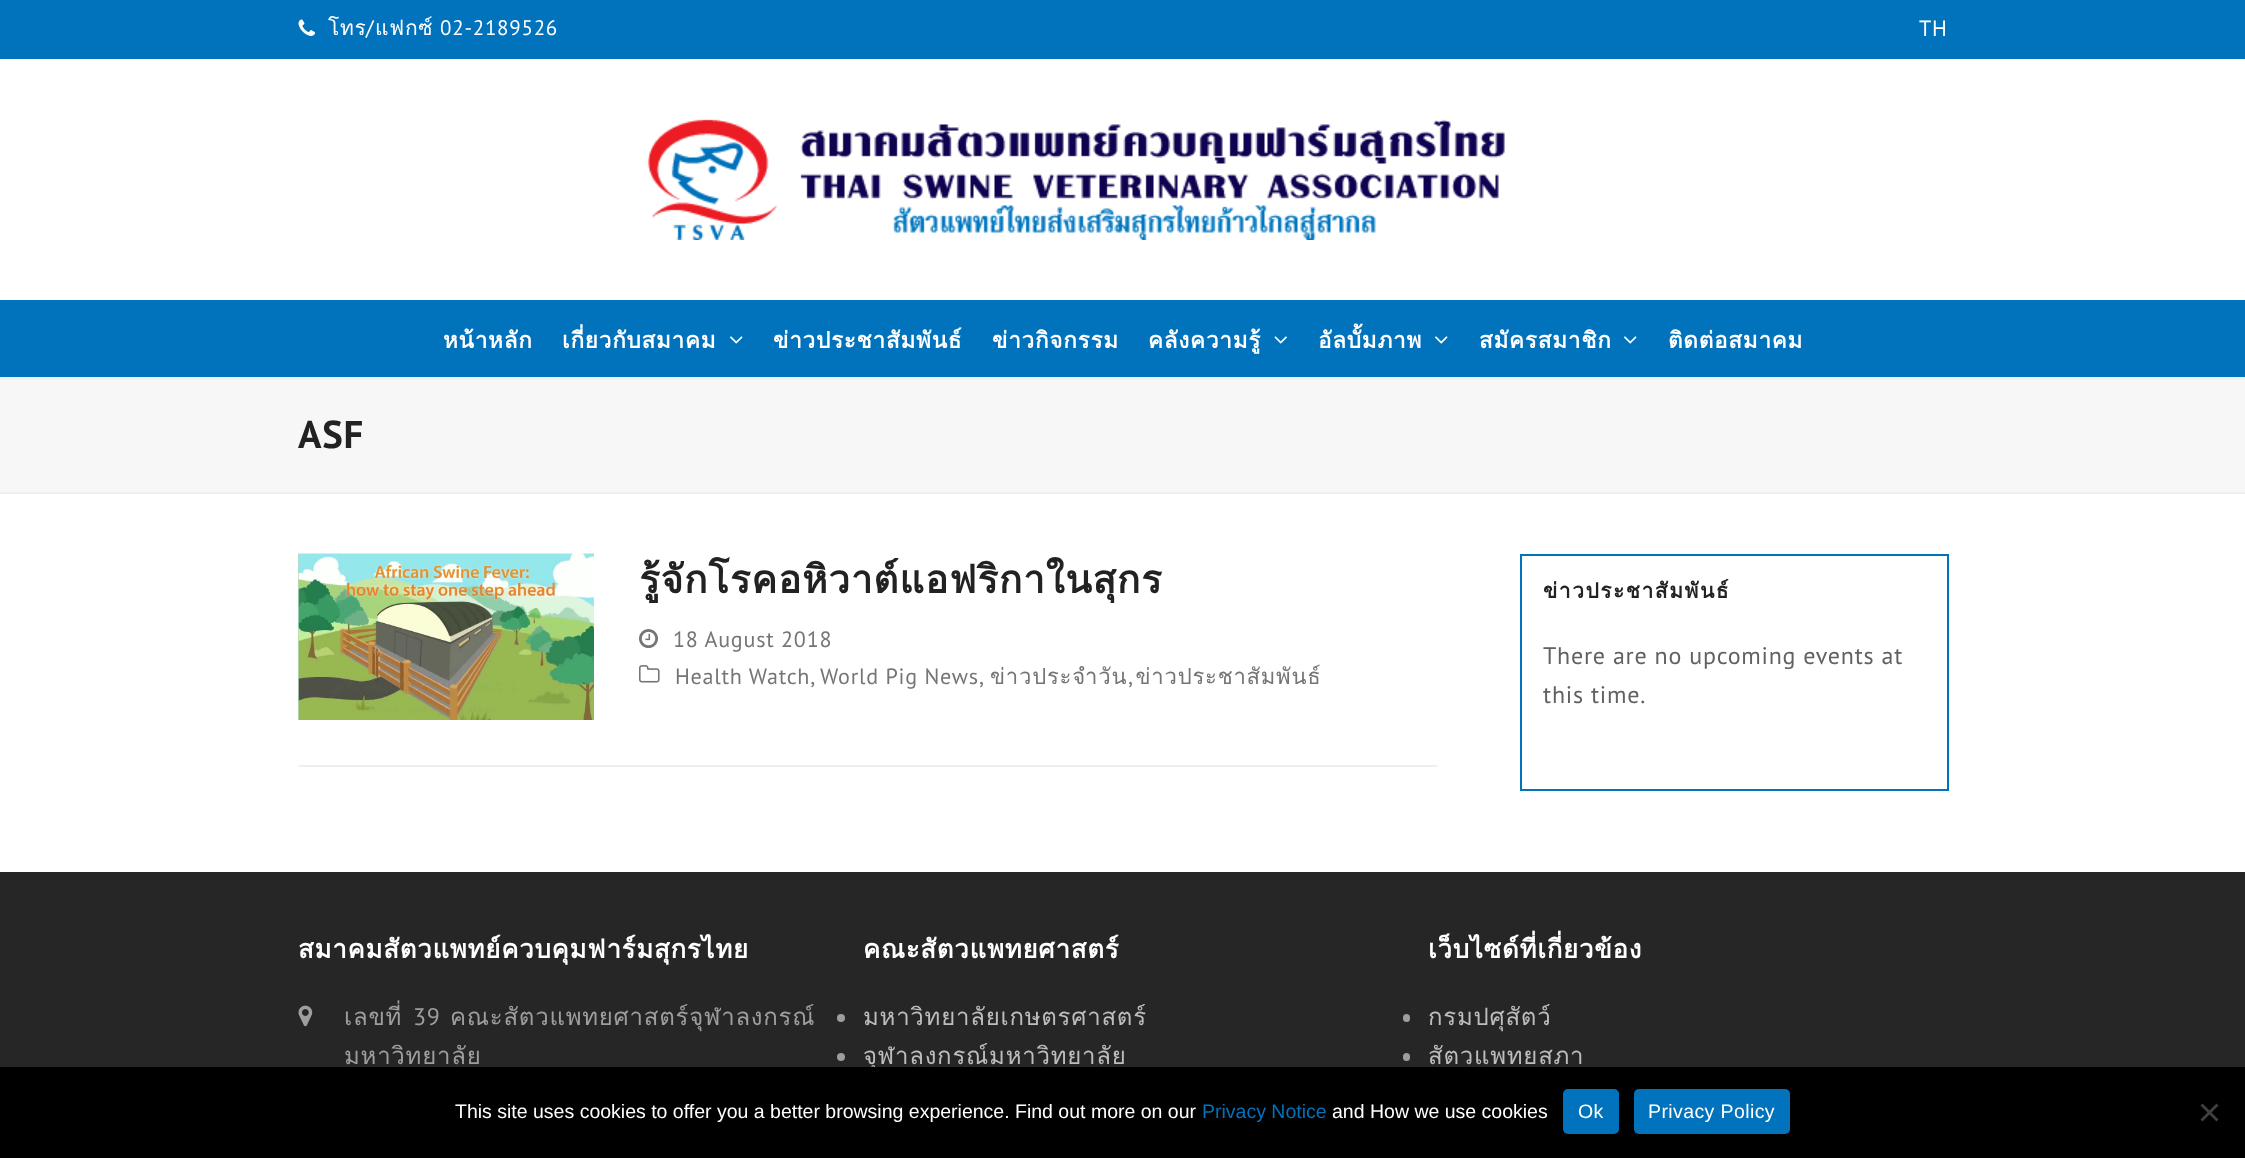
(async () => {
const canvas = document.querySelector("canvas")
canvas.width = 2245
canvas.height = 1158
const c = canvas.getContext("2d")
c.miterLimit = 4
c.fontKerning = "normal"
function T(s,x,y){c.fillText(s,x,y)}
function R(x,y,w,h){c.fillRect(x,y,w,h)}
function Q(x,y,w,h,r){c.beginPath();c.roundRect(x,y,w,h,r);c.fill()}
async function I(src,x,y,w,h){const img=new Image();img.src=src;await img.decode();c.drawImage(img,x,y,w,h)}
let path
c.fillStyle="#fff"
R(0,0,2245,1158)
c.fillStyle="#0172bc"
R(0,0,2245,59)
await I("1.png",298,19,17,17)
c.letterSpacing="0.75px"
c.font="21px Loma"
c.fillStyle="#fff"
T("โทร",328,35)
c.font="21px PT Sans"
T("/",366,35)
c.font="21px Loma"
T("แฟกซ์",375,35)
c.font="21px PT Sans"
T("02-2189526",440,35)
c.font="22.1px PT Sans"
T("TH",1919,36)
await I("2.png",647,119,858,121)
c.fillStyle="#0172bc"
R(0,300,2245,77)
c.font="bold 22.5px Loma"
c.fillStyle="#fff"
T("หน้าหลัก",443,348)
T("เกี่ยวกับสมาคม",562,348)
await I("3.png",730,336,13,8)
T("ข่าวประชาสัมพันธ์",773,348)
T("ข่าวกิจกรรม",992,348)
T("คลังความรู้",1148,348)
await I("4.png",1274,336,13,8)
T("อัลบั้มภาพ",1318,348)
await I("3.png",1435,336,13,8)
T("สมัครสมาชิก",1479,348)
await I("3.png",1624,336,13,8)
T("ติดต่อสมาคม",1668,348)
c.fillStyle="#f7f7f7"
R(0,379,2245,113)
c.fillStyle="#eee"
R(0,377,2245,2)
R(0,492,2245,2)
c.font="bold 38.75px PT Sans"
c.fillStyle="#222"
T("ASF",298,448)
await I("5.png",298,553,296,167)
c.font="bold 38.75px Loma"
T("รู้จักโรคอหิวาต์แอฟริกาในสุกร",639,593)
await I("6.png",639,629,19,20)
c.font="22.1px PT Sans"
c.fillStyle="#757575"
T("18 August 2018",673,647)
await I("7.png",639,665,21,18)
T("Health Watch,",675,684)
T("World Pig News,",820,684)
c.font="22.1px Loma"
T("ข่าวประจำวัน ข่าวประชาสัมพันธ์",990,684)
c.font="22.1px PT Sans"
T(",",1128,684)
c.fillStyle="#eee"
R(299,765,1138,2)
c.strokeStyle="#0172bc"
c.lineWidth=2
c.strokeRect(1521,555,427,235)
c.letterSpacing="1.5px"
c.font="bold 21px Loma"
c.fillStyle="#222"
T("ข่าวประชาสัมพันธ์",1543,598)
c.letterSpacing="0.75px"
c.font="24px PT Sans"
c.fillStyle="#616161"
T("There are no upcoming events at",1543,664)
T("this time.",1543,703)
c.fillStyle="#262626"
R(0,872,2245,195)
c.font="bold 25.8px Loma"
c.fillStyle="#fff"
T("สมาคมสัตวแพทย์ควบคุมฟาร์มสุกรไทย",298,958)
await I("8.png",298,1005,15,22)
c.font="24px Loma"
c.fillStyle="#9e9e9e"
T("เลขที่",344,1025)
c.font="24px PT Sans"
T("39",413,1025)
c.font="24px Loma"
T("คณะสัตวแพทยศาสตร์จุฬาลงกรณ์",450,1025)
T("มหาวิทยาลัย",344,1064)
c.font="bold 25.8px Loma"
c.fillStyle="#fff"
T("คณะสัตวแพทยศาสตร์",863,958)
c.fillStyle="#9e9e9e"
c.beginPath()
c.arc(841,1018,4,0,7)
c.fill()
c.font="24px Loma"
c.fillStyle="#bdbdbd"
T("มหาวิทยาลัยเกษตรศาสตร์",863,1025)
c.fillStyle="#9e9e9e"
c.beginPath()
c.arc(841,1057,4,0,7)
c.fill()
c.fillStyle="#bdbdbd"
T("จุฬาลงกรณ์มหาวิทยาลัย",863,1064)
c.font="bold 25.8px Loma"
c.fillStyle="#fff"
T("เว็บไซด์ที่เกี่ยวข้อง",1428,958)
c.fillStyle="#9e9e9e"
Q(1403,1014,7,8,3.5)
c.font="24px Loma"
c.fillStyle="#bdbdbd"
T("กรมปศุสัตว์",1428,1025)
c.fillStyle="#9e9e9e"
Q(1403,1053,7,8,3.5)
c.fillStyle="#bdbdbd"
T("สัตวแพทยสภา",1428,1064)
c.fillStyle="#000"
R(0,1067,2245,91)
c.letterSpacing="0px"
c.font="19.5px Liberation Sans"
c.fillStyle="#fff"
T("This site uses cookies to offer you a better browsing experience. Find out more on our",455,1118)
c.fillStyle="#0172bc"
T("Privacy Notice",1202,1118)
c.fillStyle="#fff"
T("and How we use cookies",1332,1118)
c.fillStyle="#0172bc"
Q(1563,1089,56,45,5)
c.letterSpacing="0.4px"
c.fillStyle="#fff"
T("Ok",1578,1118)
c.fillStyle="#0172bc"
Q(1634,1089,156,45,5)
c.fillStyle="#fff"
T("Privacy Policy",1648,1118)
c.fillStyle="#404040"
path = new Path2D("M2216.5 1103.5l2 2l-16 16l-2-2z")
c.fill(path)
path = new Path2D("M2200.5 1105.5l2-2l16 16l-2 2z")
c.fill(path)
})()
